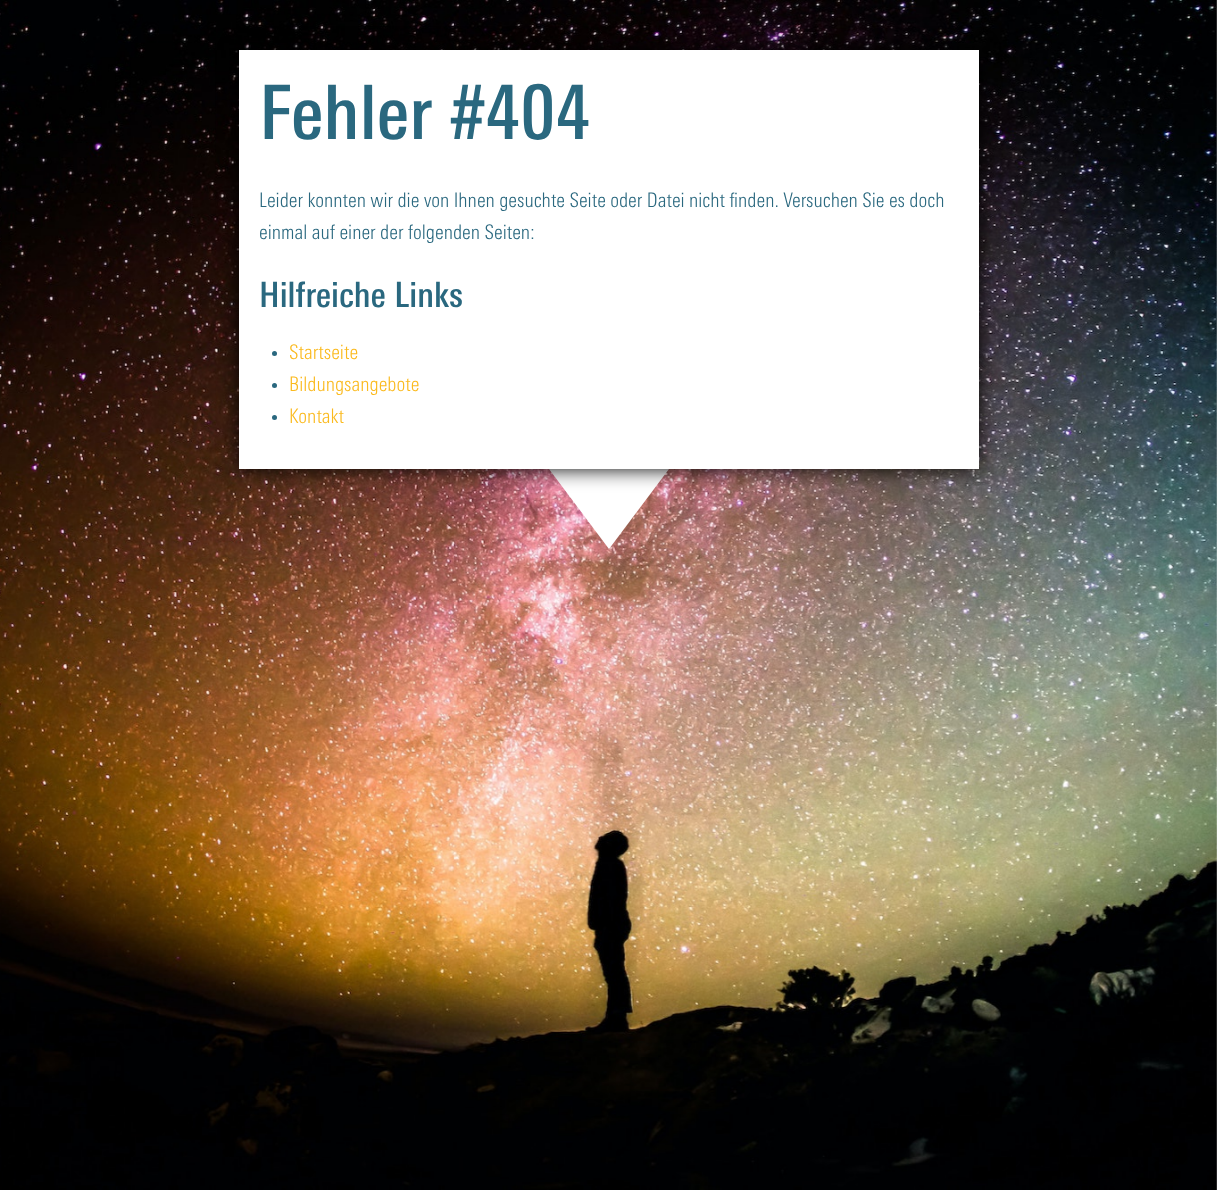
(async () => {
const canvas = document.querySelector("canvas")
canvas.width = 1217
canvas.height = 1190
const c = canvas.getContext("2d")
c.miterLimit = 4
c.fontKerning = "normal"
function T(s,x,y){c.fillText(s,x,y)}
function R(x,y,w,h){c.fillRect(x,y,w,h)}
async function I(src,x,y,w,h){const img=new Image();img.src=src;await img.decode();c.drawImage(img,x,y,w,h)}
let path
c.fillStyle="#fff"
R(0,0,1217,1190)
await I("1.png",0,0,1217,1190)
path = new Path2D("M549 469h120l-60 80z")
c.fill(path)
c.fillStyle="#000"
c.filter="blur(10px)"
c.beginPath()
c.rect(239,50,740,419)
c.fill()
c.filter="none"
c.fillStyle="#fff"
R(239,50,740,419)
c.font="500 75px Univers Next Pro"
c.fillStyle="#2a687f"
T("Fehler #404",259,139)
c.font="300 20px Univers Next Pro"
T("Leider konnten wir die von Ihnen gesuchte Seite oder Datei nicht finden. Versuchen Sie es doch",259,207)
T("einmal auf einer der folgenden Seiten:",259,239)
c.font="500 35px Univers Next Pro"
T("Hilfreiche Links",259,307)
c.beginPath()
c.arc(274.5,353.5,2.5,0,7)
c.fill()
c.font="300 20px Univers Next Pro"
c.fillStyle="#fbba1e"
T("Startseite",289,359)
c.fillStyle="#2a687f"
c.beginPath()
c.arc(274.5,385.5,2.5,0,7)
c.fill()
c.fillStyle="#fbba1e"
T("Bildungsangebote",289,391)
c.fillStyle="#2a687f"
c.beginPath()
c.arc(274.5,417.5,2.5,0,7)
c.fill()
c.fillStyle="#fbba1e"
T("Kontakt",289,423)
})()
